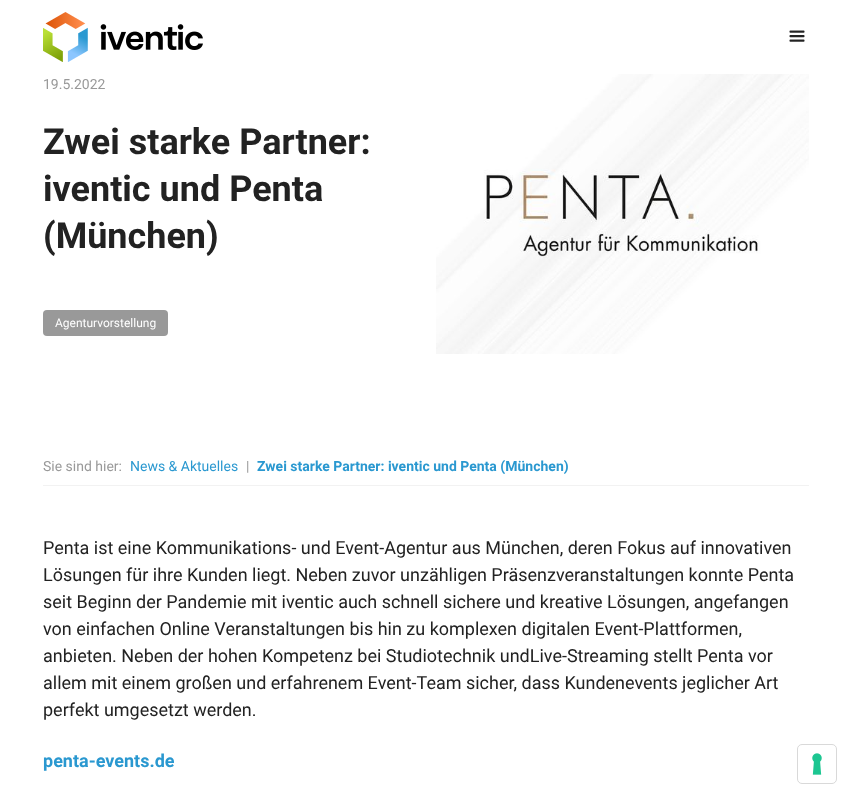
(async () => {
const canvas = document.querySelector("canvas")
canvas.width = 852
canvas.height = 799
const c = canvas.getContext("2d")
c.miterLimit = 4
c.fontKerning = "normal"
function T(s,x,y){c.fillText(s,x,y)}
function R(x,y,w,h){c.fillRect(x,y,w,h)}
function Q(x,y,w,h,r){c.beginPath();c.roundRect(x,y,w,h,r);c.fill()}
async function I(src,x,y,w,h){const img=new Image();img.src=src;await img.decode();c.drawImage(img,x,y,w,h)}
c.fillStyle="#fff"
R(0,0,852,799)
await I("1.png",43,12,160,50)
await I("2.png",789,30,16,12)
c.font="14px Roboto"
c.fillStyle="#999"
T("19.5.2022",43,89)
c.font="bold 36px Roboto"
c.fillStyle="#222"
T("Zwei starke Partner:",43,154)
T("iventic und Penta",43,201)
T("(München)",43,248)
c.fillStyle="#999"
Q(43,310,125,26,4)
c.font="12px Roboto"
c.fillStyle="#fff"
T("Agenturvorstellung",55,327)
await I("3.png",436,74,373,280)
c.fillStyle="#f2f2f2"
R(43,485,766,1)
c.font="14px Roboto"
c.fillStyle="#999"
T("Sie sind hier:",43,471)
c.fillStyle="#2a98d0"
T("News & Aktuelles",130,471)
c.fillStyle="#999"
T("|",246,471)
c.font="bold 14px Roboto"
c.fillStyle="#2a98d0"
T("Zwei starke Partner: iventic und Penta (München)",257,471)
c.font="18px Roboto"
c.fillStyle="#222"
T("Penta ist eine Kommunikations- und Event-Agentur aus München, deren Fokus auf innovativen",43,554)
T("Lösungen für ihre Kunden liegt. Neben zuvor unzähligen Präsenzveranstaltungen konnte Penta",43,581)
T("seit Beginn der Pandemie mit iventic auch schnell sichere und kreative Lösungen, angefangen",43,608)
T("von einfachen Online Veranstaltungen bis hin zu komplexen digitalen Event-Plattformen,",43,635)
T("anbieten. Neben der hohen Kompetenz bei Studiotechnik undLive-Streaming stellt Penta vor",43,662)
T("allem mit einem großen und erfahrenem Event-Team sicher, dass Kundenevents jeglicher Art",43,689)
T("perfekt umgesetzt werden.",43,716)
c.font="bold 18px Roboto"
c.fillStyle="#2a98d0"
T("penta-events.de",43,767)
c.beginPath()
c.roundRect(797.5,744.5,39,39,4.5)
c.strokeStyle="#d9d9d9"
c.stroke()
await I("4.png",812,753,10,22)
})()
